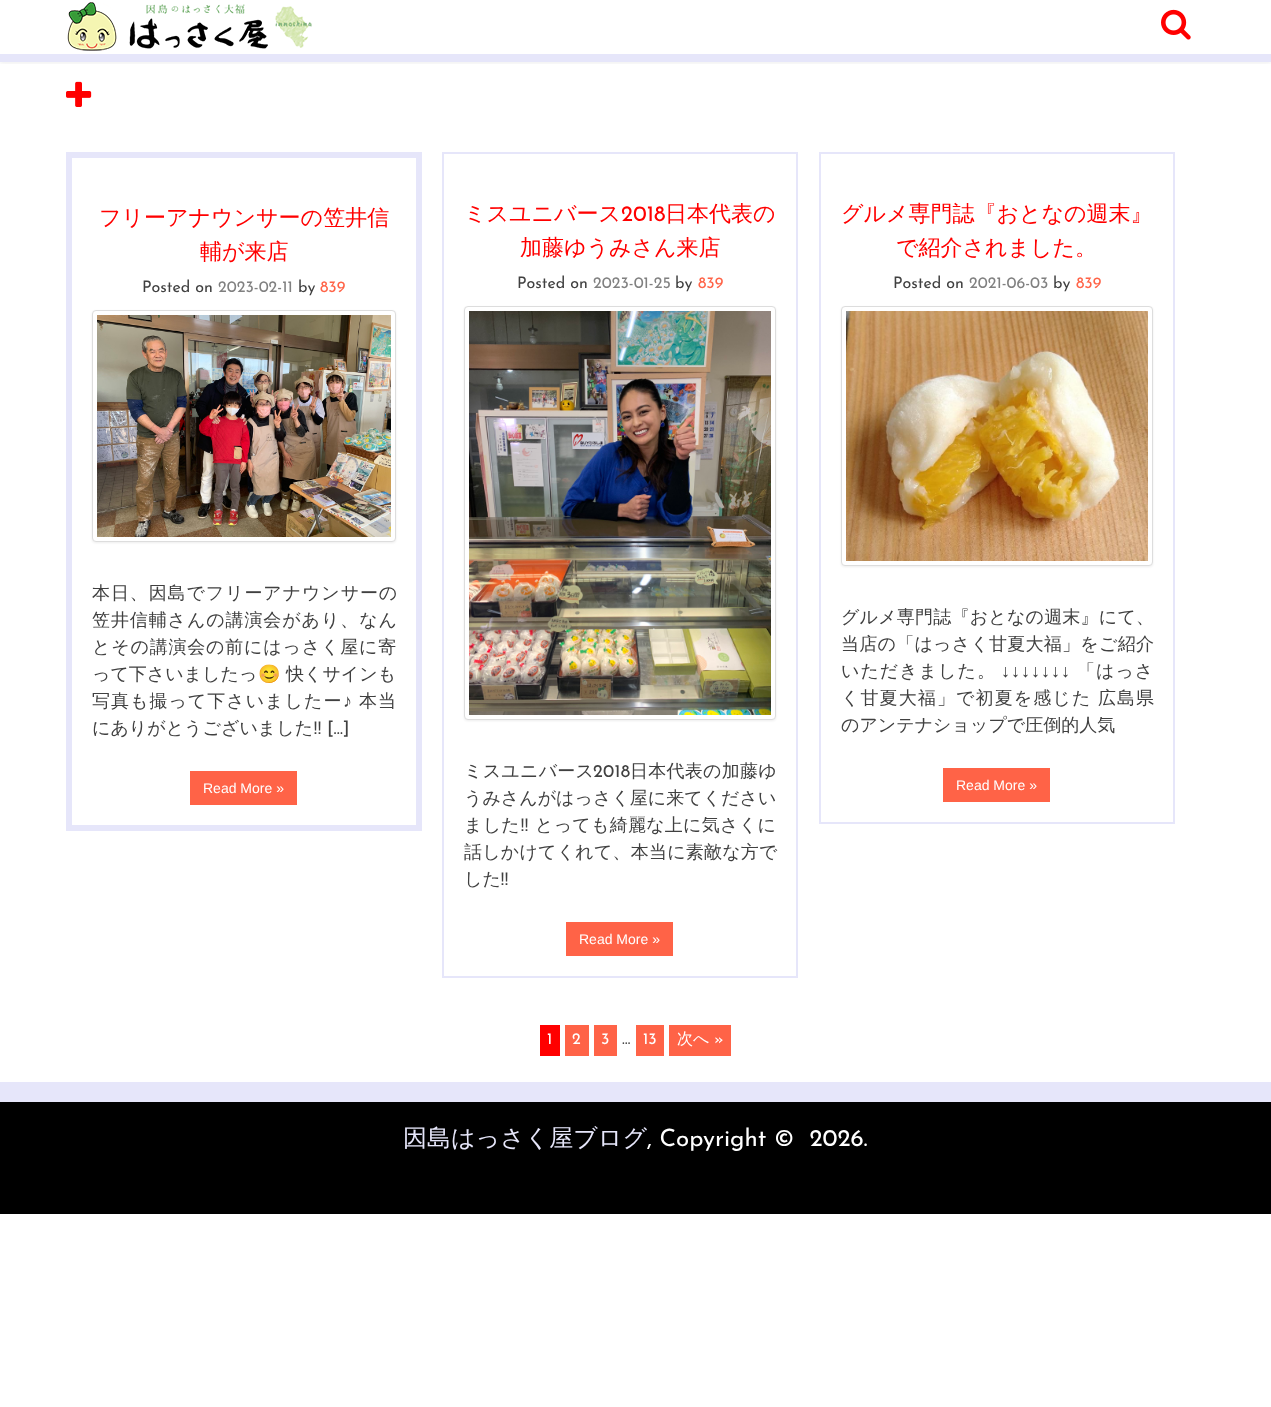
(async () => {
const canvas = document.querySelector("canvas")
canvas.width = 1271
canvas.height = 1407
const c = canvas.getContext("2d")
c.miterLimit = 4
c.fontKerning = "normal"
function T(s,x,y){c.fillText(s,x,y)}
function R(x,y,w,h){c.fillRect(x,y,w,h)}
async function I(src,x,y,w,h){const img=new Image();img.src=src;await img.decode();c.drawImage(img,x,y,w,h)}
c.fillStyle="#fff"
R(0,0,1271,1407)
c.save()
c.beginPath()
c.rect(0,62,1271,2)
c.clip()
c.fillStyle="#00000012"
c.filter="blur(2.5px)"
c.beginPath()
c.rect(0,1,1271,62)
c.fill()
c.filter="none"
c.restore()
c.fillStyle="#e6e6fa"
R(0,54,1271,8)
await I("1.png",67,2,245,49)
await I("2.png",1161,9,30,31)
await I("3.png",66,81,26,26)
c.strokeStyle="#e6e6fa"
c.lineWidth=6
c.strokeRect(69,155,350,673)
c.font="500 22px WenQuanYi Zen Hei"
c.fillStyle="#f00"
T("フリーアナウンサーの笠井信",99,225)
T("輔が来店",200,259)
c.font="16px Josefin Sans"
c.fillStyle="#404040"
T("Posted on",142,292)
c.fillStyle="#808080"
T("2023-02-11",218,292)
c.fillStyle="#404040"
T("by",298,292)
c.fillStyle="#ff6347"
T("839",320,292)
c.fillStyle="#00000012"
c.filter="blur(1px)"
c.beginPath()
c.roundRect(92,311,304,232,4)
c.fill()
c.filter="none"
c.fillStyle="#fff"
c.beginPath()
c.roundRect(92.5,310.5,303,231,3.5)
c.fill()
c.strokeStyle="#ddd"
c.lineWidth=1
c.stroke()
await I("4.png",97,315,294,222)
c.letterSpacing="0.9px"
c.font="500 18px WenQuanYi Zen Hei"
c.fillStyle="#404040"
T("本日、因島でフリーアナウンサーの",92,599)
T("笠井信輔さんの講演会があり、なん",92,626)
c.letterSpacing="0.8px"
T("とその講演会の前にはっさく屋に寄",92,653)
c.letterSpacing="0px"
T("って下さいましたっ",92,680)
c.font="18px Noto Color Emoji"
T("😊",258,680)
c.font="500 18px WenQuanYi Zen Hei"
T("快くサインも",286,680)
c.letterSpacing="1px"
T("写真も撮って下さいましたー",92,707)
c.font="18px Liberation Sans"
T("♪",343,707)
c.font="500 18px WenQuanYi Zen Hei"
T("本当",359,707)
c.letterSpacing="0px"
T("にありがとうございました",92,734)
c.font="18px Liberation Sans"
T("‼",313,734)
c.font="18px Josefin Sans"
T("[…]",327,734)
c.fillStyle="#ff6347"
R(190,771,107,34)
c.font="14px Liberation Sans"
c.fillStyle="#fff"
T("Read More »",203,793)
c.strokeStyle="#e6e6fa"
c.lineWidth=2
c.strokeRect(443,153,354,824)
c.font="500 22px WenQuanYi Zen Hei"
c.fillStyle="#f00"
T("ミスユニバース",464,221)
c.font="22px Josefin Sans"
T("2018",621,221)
c.font="500 22px WenQuanYi Zen Hei"
T("日本代表の",665,221)
T("加藤ゆうみさん来店",520,255)
c.font="16px Josefin Sans"
c.fillStyle="#404040"
T("Posted on",517,288)
c.fillStyle="#808080"
T("2023-01-25",593,288)
c.fillStyle="#404040"
T("by",675,288)
c.fillStyle="#ff6347"
T("839",698,288)
c.fillStyle="#00000012"
c.filter="blur(1px)"
c.beginPath()
c.roundRect(464,307,312,414,4)
c.fill()
c.filter="none"
c.fillStyle="#fff"
c.beginPath()
c.roundRect(464.5,306.5,311,413,3.5)
c.fill()
c.strokeStyle="#ddd"
c.lineWidth=1
c.stroke()
await I("5.png",469,311,302,404)
c.letterSpacing="0.25px"
c.font="500 18px WenQuanYi Zen Hei"
c.fillStyle="#404040"
T("ミスユニバース",464,777)
c.font="18px Josefin Sans"
T("2018",593,777)
c.font="500 18px WenQuanYi Zen Hei"
T("日本代表の加藤ゆ",630,777)
c.letterSpacing="0px"
T("うみさんがはっさく屋に来てください",464,804)
c.letterSpacing="0.25px"
T("ました",464,831)
c.font="18px Liberation Sans"
T("‼︎",520,831)
c.font="500 18px WenQuanYi Zen Hei"
T("とっても綺麗な上に気さくに",535,831)
c.letterSpacing="0.2px"
T("話しかけてくれて、本当に素敵な方で",464,858)
c.letterSpacing="0px"
T("した",464,885)
c.font="18px Liberation Sans"
T("‼︎",500,885)
c.fillStyle="#ff6347"
R(566,922,107,34)
c.font="14px Liberation Sans"
c.fillStyle="#fff"
T("Read More »",579,944)
c.strokeStyle="#e6e6fa"
c.lineWidth=2
c.strokeRect(820,153,354,670)
c.font="500 22px WenQuanYi Zen Hei"
c.fillStyle="#f00"
T("グルメ専門誌『おとなの週末』",841,221)
T("で紹介されました。",896,255)
c.font="16px Josefin Sans"
c.fillStyle="#404040"
T("Posted on",893,288)
c.fillStyle="#808080"
T("2021-06-03",969,288)
c.fillStyle="#404040"
T("by",1053,288)
c.fillStyle="#ff6347"
T("839",1076,288)
c.fillStyle="#00000012"
c.filter="blur(1px)"
c.beginPath()
c.roundRect(841,307,312,260,4)
c.fill()
c.filter="none"
c.fillStyle="#fff"
c.beginPath()
c.roundRect(841.5,306.5,311,259,3.5)
c.fill()
c.strokeStyle="#ddd"
c.lineWidth=1
c.stroke()
await I("6.png",846,311,302,250)
c.letterSpacing="0.2px"
c.font="500 18px WenQuanYi Zen Hei"
c.fillStyle="#404040"
T("グルメ専門誌『おとなの週末』にて、",841,623)
c.letterSpacing="0.25px"
T("当店の「はっさく甘夏大福」をご紹介",841,650)
c.letterSpacing="1px"
T("いただきました。",841,677)
c.font="18px Liberation Sans"
T("↓↓↓↓↓↓↓",1001,677)
c.font="500 18px WenQuanYi Zen Hei"
T("「はっさ",1077,677)
c.letterSpacing="1.1px"
T("く甘夏大福」で初夏を感じた 広島県",841,704)
c.letterSpacing="0px"
T("のアンテナショップで圧倒的人気",841,731)
c.fillStyle="#ff6347"
R(943,768,107,34)
c.font="14px Liberation Sans"
c.fillStyle="#fff"
T("Read More »",956,790)
c.fillStyle="#f00"
R(540,1025,20,31)
c.font="16px Josefin Sans"
c.fillStyle="#fff"
T("1",547,1044)
c.fillStyle="#ff6347"
R(565,1025,24,31)
c.fillStyle="#fff"
T("2",572,1044)
c.fillStyle="#ff6347"
R(594,1025,23,31)
c.fillStyle="#fff"
T("3",601,1044)
c.fillStyle="#404040"
T("…",622,1044)
c.fillStyle="#ff6347"
R(636,1025,28,31)
c.fillStyle="#fff"
T("13",643,1044)
c.fillStyle="#ff6347"
R(669,1025,62,31)
c.font="500 16px WenQuanYi Zen Hei"
c.fillStyle="#fff"
T("次へ",677,1044)
c.font="16px Josefin Sans"
T("»",714,1044)
c.fillStyle="#000"
R(0,1102,1271,112)
c.fillStyle="#e6e6fa"
R(0,1082,1271,20)
c.font="500 24px WenQuanYi Zen Hei"
T("因島はっさく屋ブログ",403,1146)
c.font="24px Josefin Sans"
c.fillStyle="#fff"
T(", Copyright ©  2026.",647,1146)
})()
